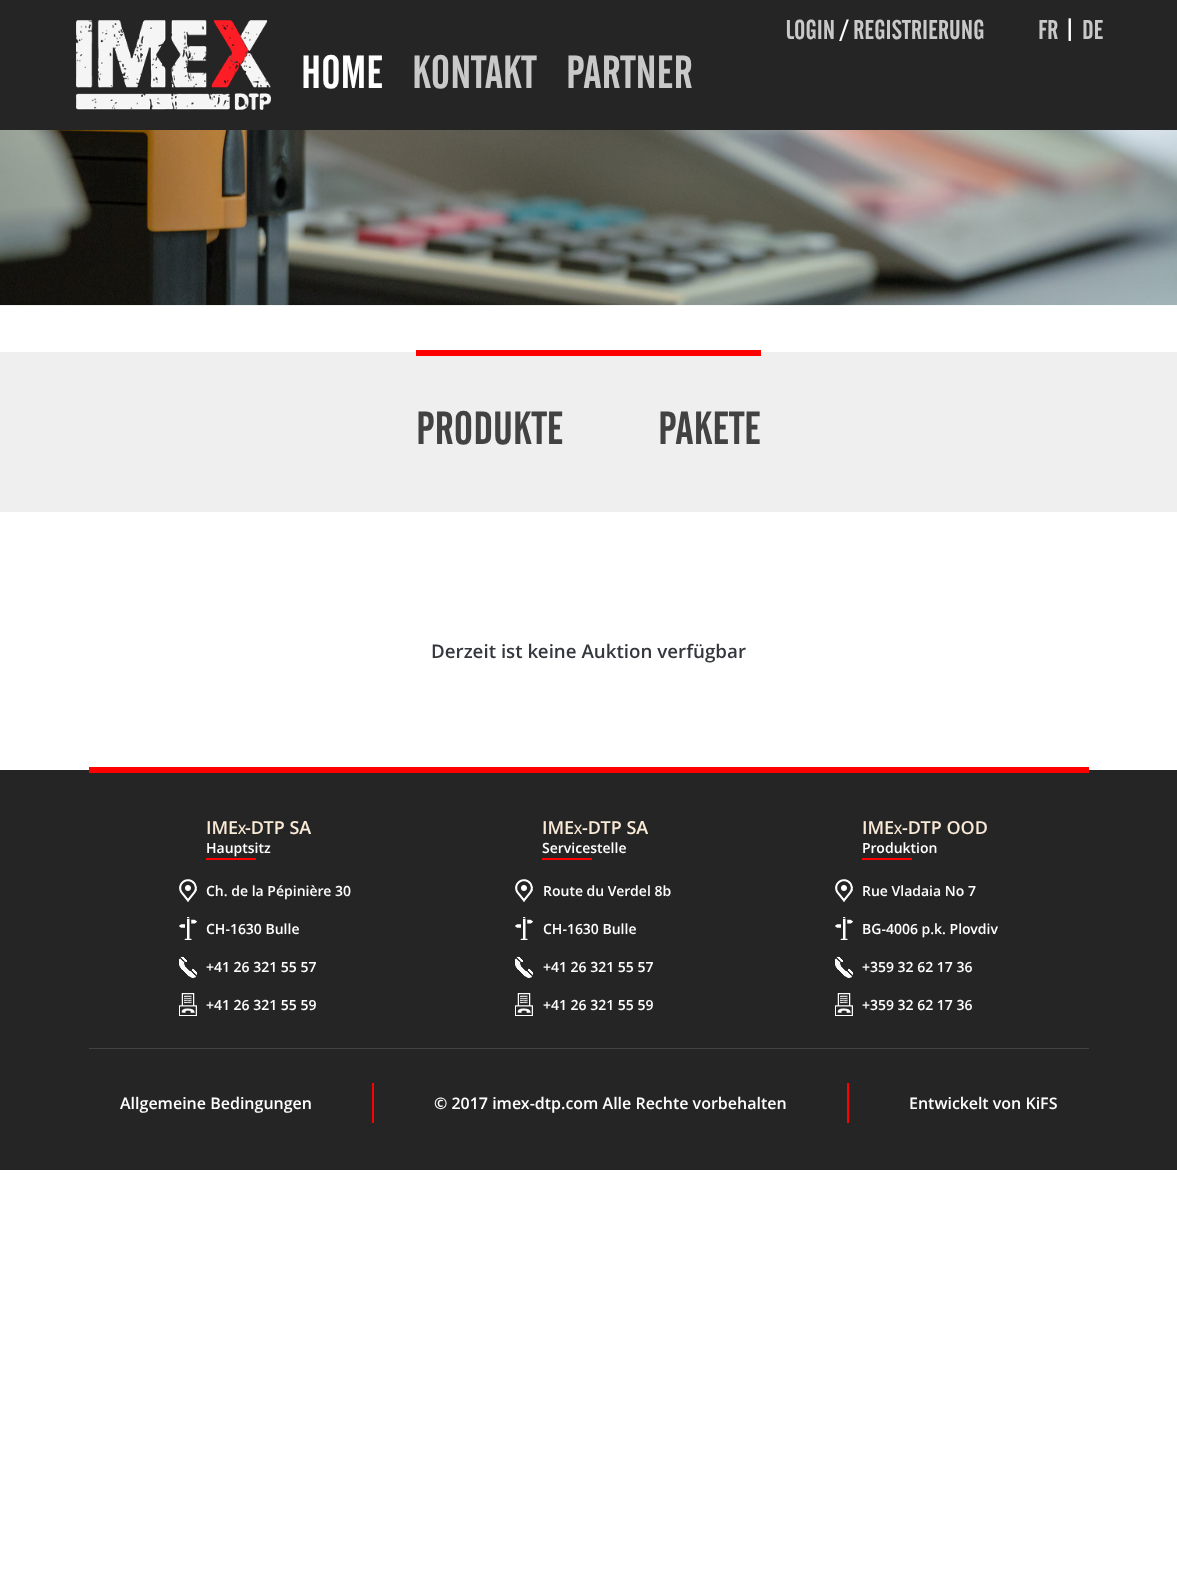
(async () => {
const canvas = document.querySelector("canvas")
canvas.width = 1177
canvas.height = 1583
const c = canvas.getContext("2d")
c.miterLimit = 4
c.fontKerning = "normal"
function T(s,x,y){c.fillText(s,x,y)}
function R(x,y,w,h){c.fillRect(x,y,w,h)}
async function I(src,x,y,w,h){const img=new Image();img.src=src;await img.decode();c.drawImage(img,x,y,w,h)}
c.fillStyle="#fff"
R(0,0,1177,1583)
c.fillStyle="#252525"
R(0,0,1177,130)
await I("1.png",76,20,195,90)
c.font="46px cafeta"
c.fillStyle="#fff"
T("HOME",301,88)
c.fillStyle="#c9c9c9"
T("KONTAKT",412,88)
T("PARTNER",566,88)
c.font="27px cafeta"
T("LOGIN",785,39)
c.save()
c.beginPath()
c.rect(785,17,321,24)
c.clip()
c.fillStyle="#fff"
T("/",841,39)
c.restore()
T("REGISTRIERUNG",853,39)
T("FR",1038,39)
c.save()
c.beginPath()
c.rect(785,17,321,24)
c.clip()
c.fillStyle="#fff"
T("|",1063,39)
c.restore()
T("DE",1082,39)
await I("2.png",0,130,1177,176)
c.fillStyle="#efefef"
R(0,352,1177,160)
c.fillStyle="#f00"
R(416,350,345,6)
c.font="46px cafeta"
c.fillStyle="#424242"
T("PRODUKTE",416,444)
T("PAKETE",658,444)
c.font="600 18.75px Open Sans"
c.fillStyle="#34373c"
T("Derzeit ist keine Auktion verfügbar",431,658)
c.fillStyle="#252525"
R(0,770,1177,400)
c.fillStyle="#f00"
R(89,767,1000,6)
c.font="600 18px Open Sans"
c.fillStyle="#faebd7"
T("IME",206,834)
c.font="600 13px Open Sans"
T("X",238,834)
c.font="600 18px Open Sans"
T("-DTP SA",245,834)
c.font="600 14px Open Sans"
c.fillStyle="#fff"
T("Hauptsitz",206,853)
c.fillStyle="#f00"
R(206,858,50,2)
await I("3.png",179,879,18,23)
c.fillStyle="#fff"
T("Ch. de la Pépinière 30",206,896)
await I("4.png",179,917,18,23)
T("CH-1630 Bulle",206,934)
await I("5.png",179,956,18,22)
T("+41 26 321 55 57",206,972)
await I("6.png",179,993,18,23)
T("+41 26 321 55 59",206,1010)
c.font="600 18px Open Sans"
c.fillStyle="#faebd7"
T("IME",542,834)
c.font="600 13px Open Sans"
T("X",574,834)
c.font="600 18px Open Sans"
T("-DTP SA",582,834)
c.font="600 14px Open Sans"
c.fillStyle="#fff"
T("Servicestelle",542,853)
c.fillStyle="#f00"
R(542,858,50,2)
await I("3.png",515,879,18,23)
c.fillStyle="#fff"
T("Route du Verdel 8b",543,896)
await I("4.png",515,917,18,23)
T("CH-1630 Bulle",543,934)
await I("5.png",515,956,18,22)
T("+41 26 321 55 57",543,972)
await I("6.png",515,993,18,23)
T("+41 26 321 55 59",543,1010)
c.font="600 18px Open Sans"
c.fillStyle="#faebd7"
T("IME",862,834)
c.font="600 13px Open Sans"
T("X",894,834)
c.font="600 18px Open Sans"
T("-DTP OOD",902,834)
c.font="600 14px Open Sans"
c.fillStyle="#fff"
T("Produktion",862,853)
c.fillStyle="#f00"
R(862,858,50,2)
await I("3.png",835,879,18,23)
c.fillStyle="#fff"
T("Rue Vladaia No 7",862,896)
await I("4.png",835,917,18,23)
T("BG-4006 p.k. Plovdiv",862,934)
await I("5.png",835,956,18,22)
T("+359 32 62 17 36",862,972)
await I("6.png",835,993,18,23)
T("+359 32 62 17 36",862,1010)
c.fillStyle="#424343"
R(89,1048,1000,1)
c.font="600 16px Open Sans"
c.fillStyle="#fff"
T("Allgemeine Bedingungen",120,1109)
c.fillStyle="#f00"
R(372,1083,2,40)
c.fillStyle="#fff"
T("© 2017 imex-dtp.com Alle Rechte vorbehalten",434,1109)
c.fillStyle="#f00"
R(847,1083,2,40)
c.fillStyle="#fff"
T("Entwickelt von KiFS",909,1109)
})()
